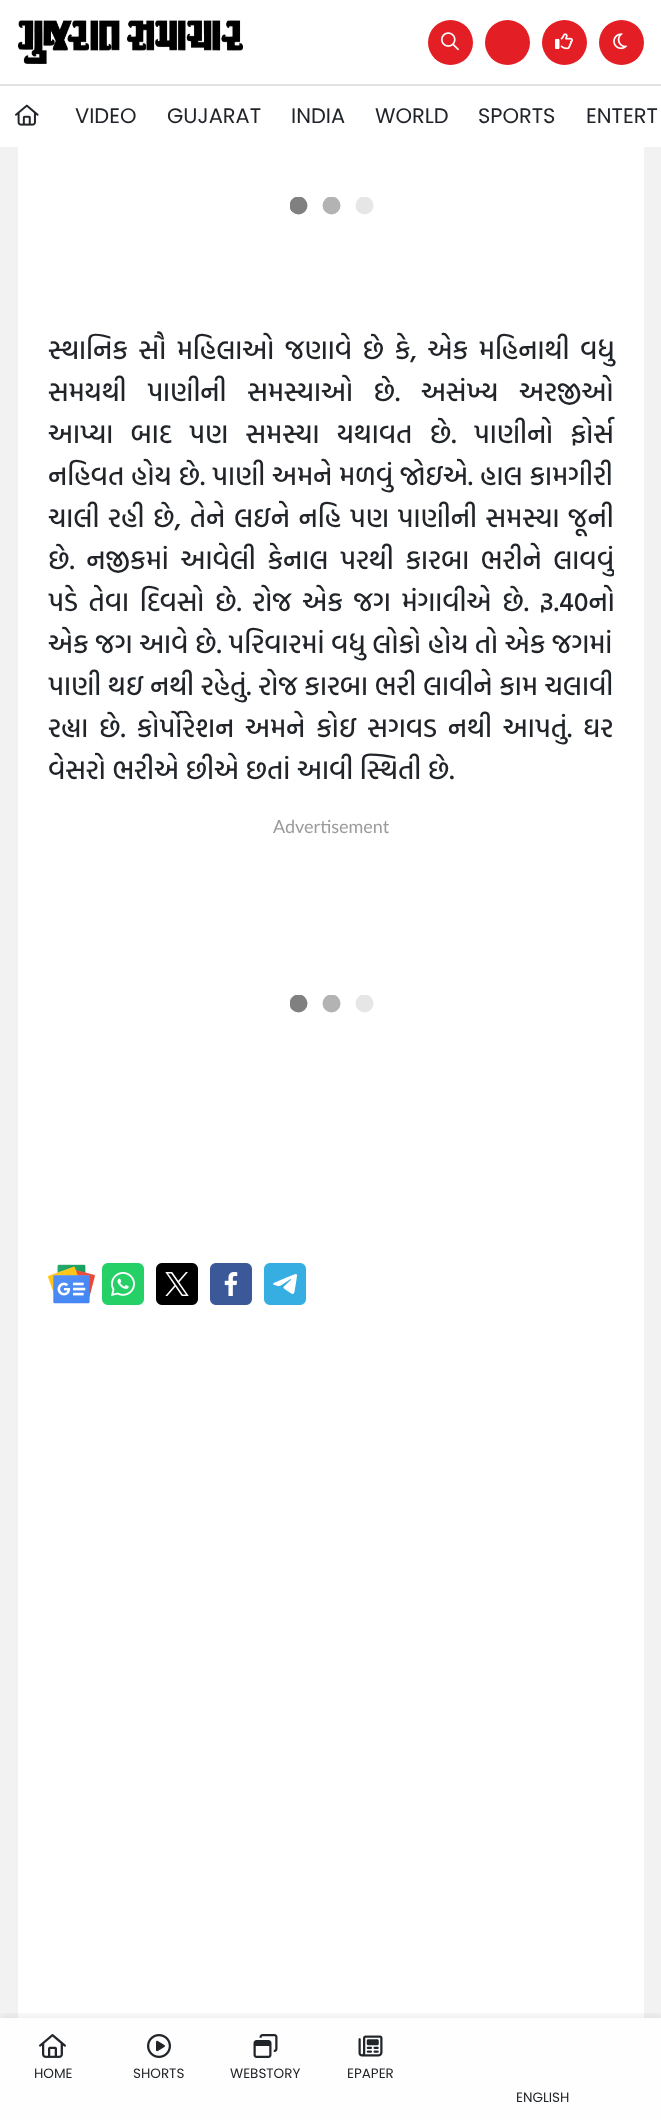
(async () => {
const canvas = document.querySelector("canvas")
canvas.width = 661
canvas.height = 2120
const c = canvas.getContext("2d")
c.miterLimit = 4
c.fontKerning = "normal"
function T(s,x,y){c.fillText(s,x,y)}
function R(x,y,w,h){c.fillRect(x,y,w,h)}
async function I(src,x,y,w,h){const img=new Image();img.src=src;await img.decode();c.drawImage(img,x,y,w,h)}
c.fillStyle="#f2f2f2"
R(0,0,661,2120)
c.fillStyle="#fefefe"
R(0,2018,661,102)
c.fillStyle="#fff"
R(0,0,661,84)
await I("1.png",18,20,225,44)
c.fillStyle="#e31e25"
c.beginPath()
c.arc(450.5,42.5,22.5,0,7)
c.fill()
await I("2.png",441,32,18,19)
c.beginPath()
c.arc(507.5,42.5,22.5,0,7)
c.fill()
c.beginPath()
c.arc(564.5,42.5,22.5,0,7)
c.fill()
await I("3.png",555,33,18,17)
c.beginPath()
c.arc(621.5,42.5,22.5,0,7)
c.fill()
await I("4.png",613,33,15,17)
c.fillStyle="#fff"
R(0,86,661,61)
c.fillStyle="#e1e1e1"
R(0,84,661,2)
await I("5.png",15,104,24,22)
c.font="21px Poppins"
c.fillStyle="#212529"
T("VIDEO",75,123)
T("GUJARAT",167,123)
T("INDIA",291,123)
T("WORLD",375,123)
T("SPORTS",478,123)
T("ENTERT",586,123)
c.fillStyle="#fff"
R(18,147,626,1871)
c.save()
c.beginPath()
c.rect(290,197,84,18)
c.clip()
c.fillStyle="#808080"
c.beginPath()
c.arc(298.5,205.5,9,0,7)
c.fill()
c.fillStyle="#b3b3b3"
c.beginPath()
c.arc(331.5,205.5,9,0,7)
c.fill()
c.fillStyle="#e6e6e6"
c.beginPath()
c.arc(364.5,205.5,9,0,7)
c.fill()
c.restore()
c.wordSpacing="4px"
c.font="500 27px Hind Vadodara"
c.fillStyle="#212529"
T("સ્થાનિક સૌ મહિલાઓ જણાવે છે કે, એક મહિનાથી વધુ",48,359)
c.wordSpacing="14px"
T("સમયથી પાણીની સમસ્યાઓ છે. અસંખ્ય અરજીઓ",48,401)
c.wordSpacing="10.75px"
T("આપ્યા બાદ પણ સમસ્યા યથાવત છે. પાણીનો ફોર્સ",48,443)
c.wordSpacing="0.25px"
T("નહિવત હોય છે. પાણી અમને મળવું જોઇએ. હાલ કામગીરી",48,485)
c.wordSpacing="2px"
T("ચાલી રહી છે, તેને લઇને નહિ પણ પાણીની સમસ્યા જૂની",48,527)
c.save()
c.beginPath()
c.rect(48,0,566,1236)
c.clip()
c.wordSpacing="5px"
T("છે. નજીકમાં આવેલી કેનાલ પરથી કારબા ભરીને લાવવું",48,569)
c.restore()
c.wordSpacing="4px"
T("પડે તેવા દિવસો છે. રોજ એક જગ મંગાવીએ છે. રૂ.40નો",48,611)
c.save()
c.beginPath()
c.rect(48,0,566,1236)
c.clip()
c.wordSpacing="0px"
T("એક જગ આવે છે. પરિવારમાં વધુ લોકો હોય તો એક જગમાં",48,653)
c.restore()
c.wordSpacing="0px"
T("પાણી થઇ નથી રહેતું. રોજ કારબા ભરી લાવીને કામ ચલાવી",48,695)
c.wordSpacing="4.25px"
T("રહ્યા છે. કોર્પોરેશન અમને કોઇ સગવડ નથી આપતું. ઘર",48,737)
c.save()
c.beginPath()
c.rect(48,0,566,1236)
c.clip()
c.wordSpacing="0px"
T("વેસરો ભરીએ છીએ છતાં આવી સ્થિતી છે.",48,779)
c.restore()
c.save()
c.beginPath()
c.rect(290,995,84,18)
c.clip()
c.fillStyle="#808080"
c.beginPath()
c.arc(298.5,1003.5,9,0,7)
c.fill()
c.fillStyle="#b3b3b3"
c.beginPath()
c.arc(331.5,1003.5,9,0,7)
c.fill()
c.fillStyle="#e6e6e6"
c.beginPath()
c.arc(364.5,1003.5,9,0,7)
c.fill()
c.restore()
c.wordSpacing="0px"
c.font="18px Lato"
c.fillStyle="#9b9b9b"
T("Advertisement",273,833)
await I("6.png",48,1264,47,40)
await I("7.png",102,1263,42,42)
await I("8.png",156,1263,42,42)
await I("9.png",210,1263,42,42)
await I("10.png",264,1263,42,42)
c.save()
c.beginPath()
c.rect(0,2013,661,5)
c.clip()
c.fillStyle="#00000012"
c.filter="blur(4px)"
c.beginPath()
c.rect(0,2015,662,103)
c.fill()
c.filter="none"
c.restore()
await I("11.png",39,2034,27,24)
c.font="13.5px Poppins"
c.fillStyle="#212529"
T("HOME",34,2078)
await I("12.png",147,2034,24,24)
T("SHORTS",133,2078)
await I("13.png",253,2034,25,24)
T("WEBSTORY",230,2078)
await I("14.png",358,2035,25,22)
T("EPAPER",347,2078)
T("ENGLISH",516,2102)
})()
